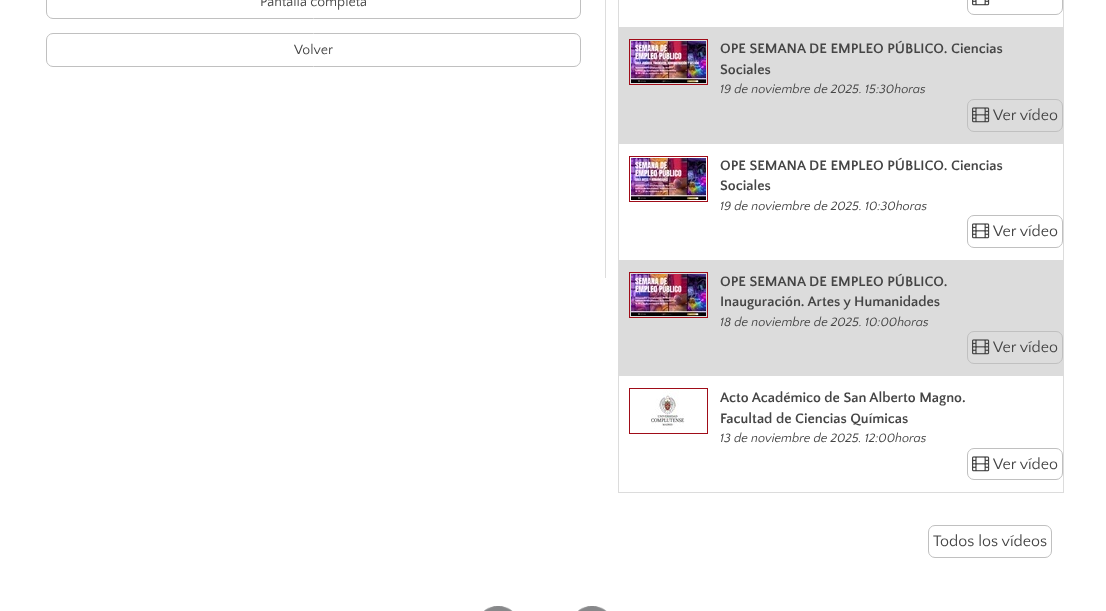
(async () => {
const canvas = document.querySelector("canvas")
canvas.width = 1106
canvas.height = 611
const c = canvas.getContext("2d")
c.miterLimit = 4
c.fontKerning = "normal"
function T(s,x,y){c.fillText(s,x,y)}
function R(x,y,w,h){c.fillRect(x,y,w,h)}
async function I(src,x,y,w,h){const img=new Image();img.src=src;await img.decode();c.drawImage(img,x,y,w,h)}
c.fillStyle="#fff"
R(0,0,1106,611)
c.fillStyle="#ddd"
R(605,0,1,278)
c.beginPath()
c.roundRect(46.5,-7.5,534,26,6.5)
c.strokeStyle="#c0c0c0"
c.stroke()
c.font="14px Quattrocento Sans"
c.fillStyle="#454545"
T("Pantalla completa",260,6)
c.beginPath()
c.roundRect(46.5,33.5,534,33,6.5)
c.stroke()
T("Volver",294,54)
c.strokeStyle="#dcdcdc"
c.strokeRect(618.5,-.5,445,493)
c.beginPath()
c.roundRect(967.5,-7.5,95,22,6.5)
c.strokeStyle="#c0c0c0"
c.stroke()
await I("1.png",972,0,18,6)
c.fillStyle="#dcdcdc"
R(619,27,444,117)
c.strokeStyle="#a00c18"
c.strokeRect(629.5,39.5,78,45)
await I("2.png",631,41,75,42)
c.font="bold 14.4px Quattrocento Sans"
c.fillStyle="#454545"
T("OPE SEMANA DE EMPLEO PÚBLICO. Ciencias",720,53)
T("Sociales",720,74)
c.font="italic 12.75px Quattrocento Sans"
T("19 de noviembre de 2025. 15:30horas",720,93)
c.beginPath()
c.roundRect(967.5,99.5,95,32,6.5)
c.strokeStyle="#c0c0c0"
c.stroke()
await I("3.png",972,107,18,16)
c.font="16px Quattrocento Sans"
T("Ver vídeo",993,120)
c.strokeStyle="#a00c18"
c.strokeRect(629.5,156.5,78,45)
await I("4.png",631,158,75,42)
c.font="bold 14.4px Quattrocento Sans"
T("OPE SEMANA DE EMPLEO PÚBLICO. Ciencias",720,170)
T("Sociales",720,190)
c.font="italic 12.75px Quattrocento Sans"
T("19 de noviembre de 2025. 10:30horas",720,210)
c.beginPath()
c.roundRect(967.5,215.5,95,32,6.5)
c.strokeStyle="#c0c0c0"
c.stroke()
await I("5.png",972,223,18,16)
c.font="16px Quattrocento Sans"
T("Ver vídeo",993,236)
c.fillStyle="#dcdcdc"
R(619,260,444,116)
c.strokeStyle="#a00c18"
c.strokeRect(629.5,272.5,78,45)
await I("6.png",631,274,75,42)
c.font="bold 14.4px Quattrocento Sans"
c.fillStyle="#454545"
T("OPE SEMANA DE EMPLEO PÚBLICO.",720,286)
T("Inauguración. Artes y Humanidades",720,306)
c.font="italic 12.75px Quattrocento Sans"
T("18 de noviembre de 2025. 10:00horas",720,326)
c.beginPath()
c.roundRect(967.5,331.5,95,32,6.5)
c.strokeStyle="#c0c0c0"
c.stroke()
await I("3.png",972,339,18,16)
c.font="16px Quattrocento Sans"
T("Ver vídeo",993,352)
c.strokeStyle="#a00c18"
c.strokeRect(629.5,388.5,78,45)
await I("7.png",651,390,34,39)
c.font="bold 14.4px Quattrocento Sans"
T("Acto Académico de San Alberto Magno.",720,402)
T("Facultad de Ciencias Químicas",720,423)
c.font="italic 12.75px Quattrocento Sans"
T("13 de noviembre de 2025. 12:00horas",720,442)
c.beginPath()
c.roundRect(967.5,448.5,95,31,6.5)
c.strokeStyle="#c0c0c0"
c.stroke()
await I("5.png",972,456,18,16)
c.font="16px Quattrocento Sans"
T("Ver vídeo",993,469)
c.beginPath()
c.roundRect(928.5,525.5,123,32,6.5)
c.stroke()
T("Todos los vídeos",933,546)
await I("8.png",484,606,29,5)
await I("9.png",578,606,29,5)
})()
